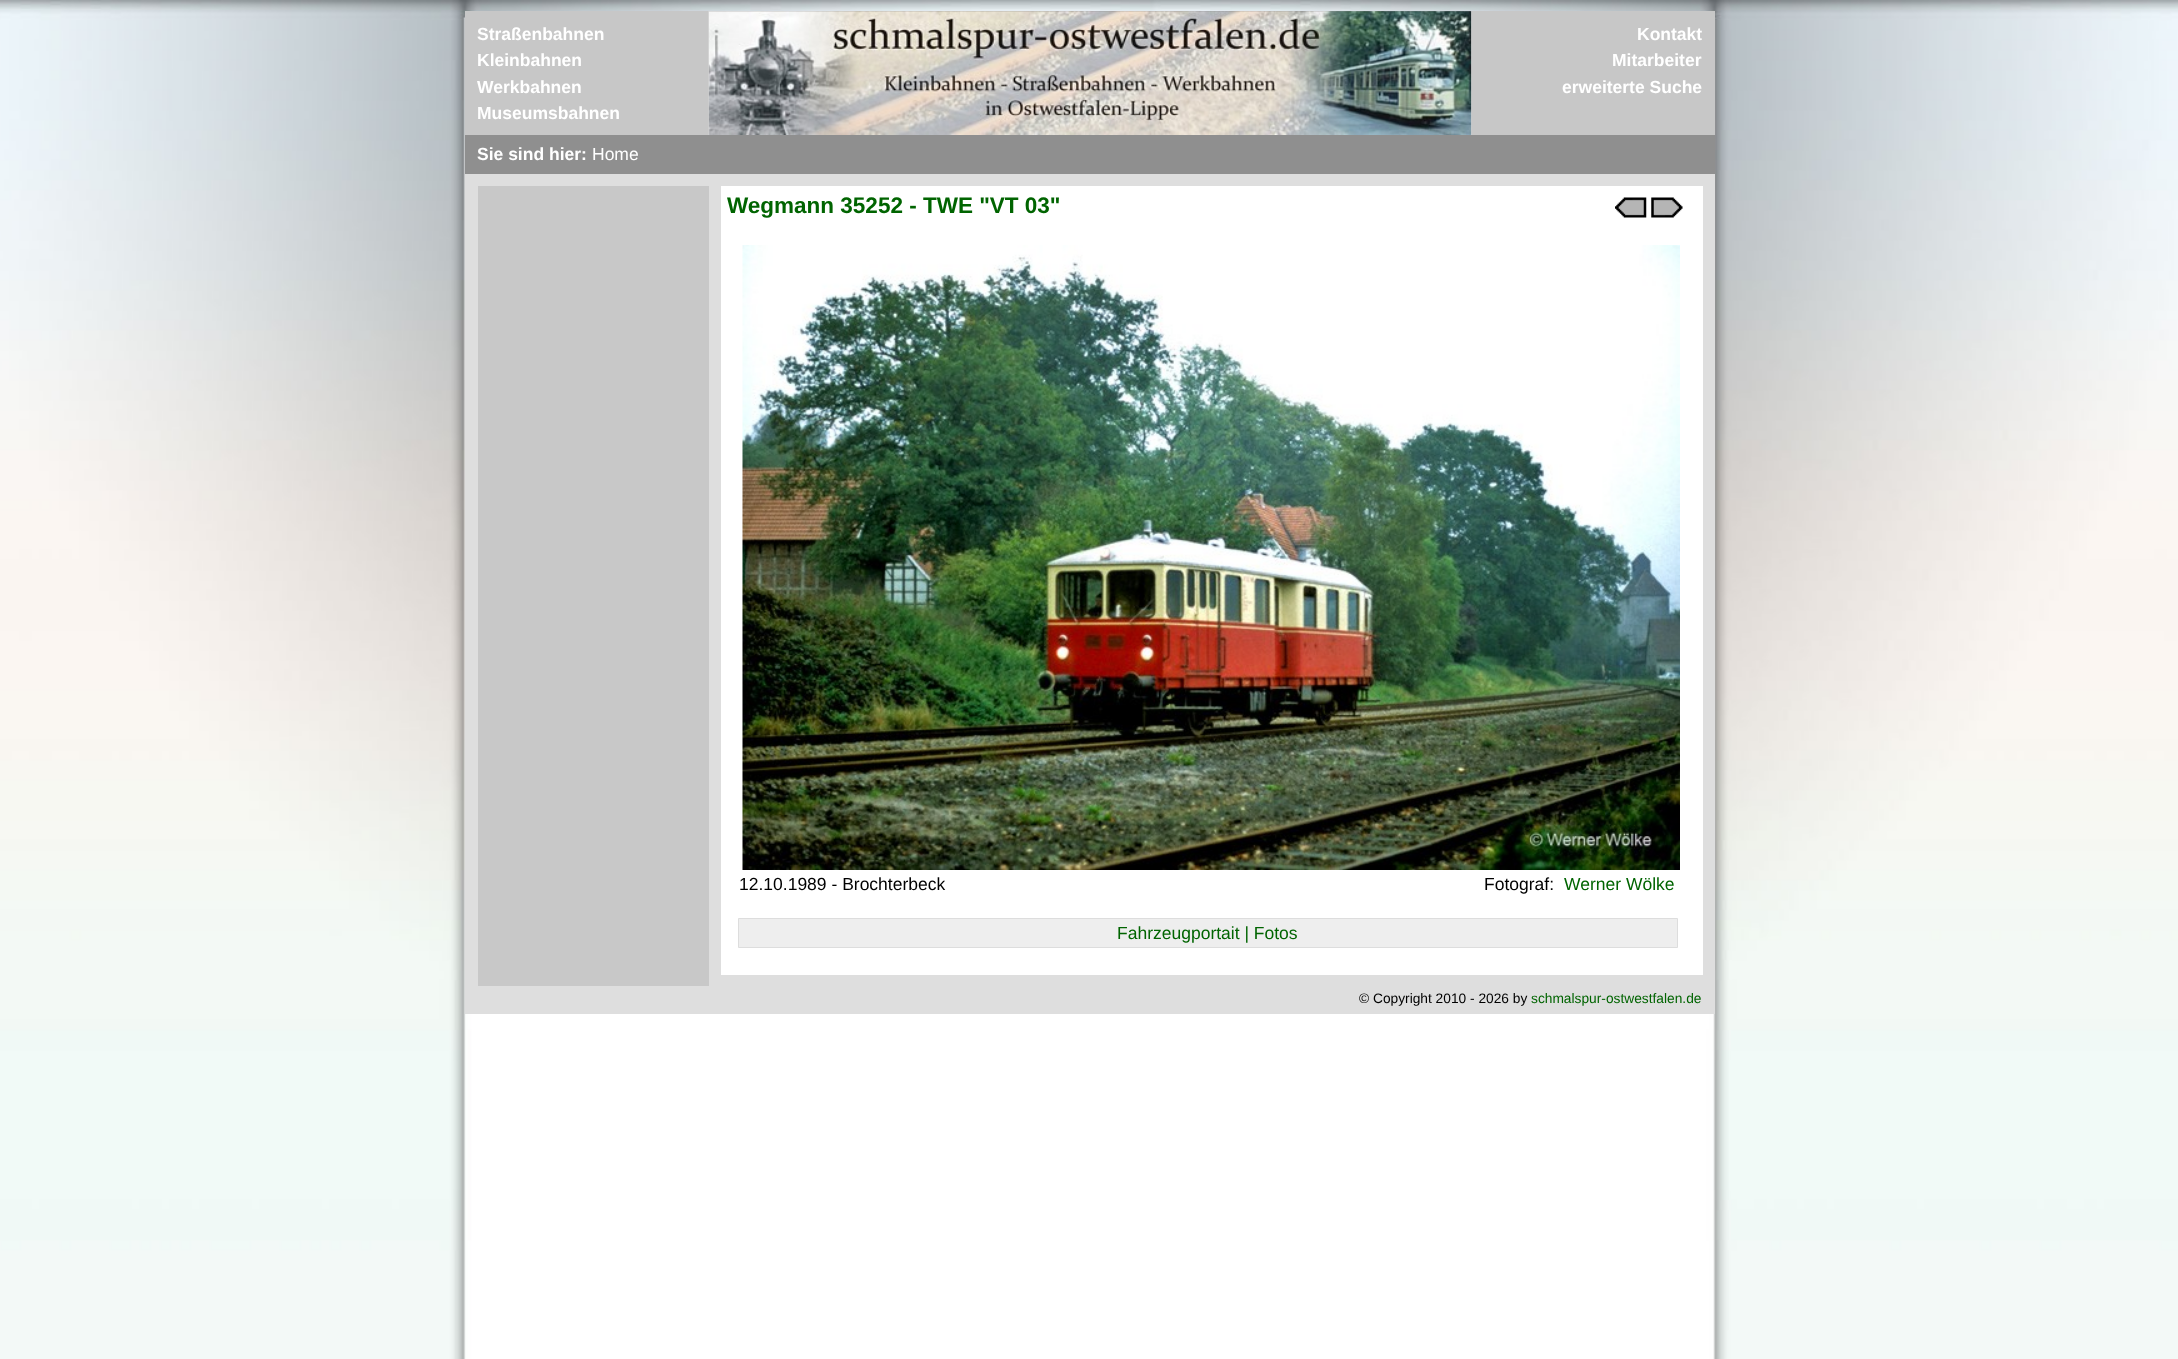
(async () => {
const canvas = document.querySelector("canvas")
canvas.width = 2178
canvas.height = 1359
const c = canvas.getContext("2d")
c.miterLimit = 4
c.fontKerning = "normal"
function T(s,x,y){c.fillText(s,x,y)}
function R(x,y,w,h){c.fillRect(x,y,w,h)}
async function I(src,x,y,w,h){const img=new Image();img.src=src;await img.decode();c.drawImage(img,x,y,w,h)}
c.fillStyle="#fff"
R(0,0,2178,1359)
await I("1.png",0,0,2178,1359)
c.fillStyle="#dedede"
R(465,174,1250,840)
c.fillStyle="#8f8f8f"
R(465,11,1250,163)
await I("2.png",708,11,764,124)
c.fillStyle="#ffffff80"
R(465,11,244,124)
c.font="bold 17.5px Liberation Sans"
c.fillStyle="#fff"
T("Straßenbahnen",477,40)
T("Kleinbahnen",477,66)
T("Werkbahnen",477,93)
T("Museumsbahnen",477,119)
c.fillStyle="#ffffff80"
R(1471,11,244,124)
c.fillStyle="#fff"
T("Kontakt",1637,40)
T("Mitarbeiter",1612,66)
T("erweiterte Suche",1562,93)
T("Sie sind hier:",477,160)
c.font="17.5px Liberation Sans"
T("Home",592,160)
c.fillStyle="#c8c8c8"
R(478,186,231,800)
c.fillStyle="#fff"
R(721,186,982,789)
c.font="bold 22.5px Liberation Sans"
c.fillStyle="#006400"
T("Wegmann 35252 - TWE \"VT 03\"",727,213)
await I("3.png",1615,197,32,21)
await I("4.png",1651,197,32,21)
await I("5.png",742,245,938,625)
c.font="17.5px Liberation Sans"
c.fillStyle="#000"
T("12.10.1989 - Brochterbeck",739,890)
T("Fotograf:",1484,890)
c.fillStyle="#006400"
T("Werner Wölke",1564,890)
c.fillStyle="#eee"
c.beginPath()
c.rect(738.5,918.5,939,29)
c.fill()
c.strokeStyle="#ddd"
c.stroke()
c.fillStyle="#006400"
T("Fahrzeugportait | Fotos",1117,939)
c.font="13.75px Liberation Sans"
c.fillStyle="#000"
T("© Copyright 2010 - 2026 by",1359,1003)
c.fillStyle="#006400"
T("schmalspur-ostwestfalen.de",1531,1003)
})()
